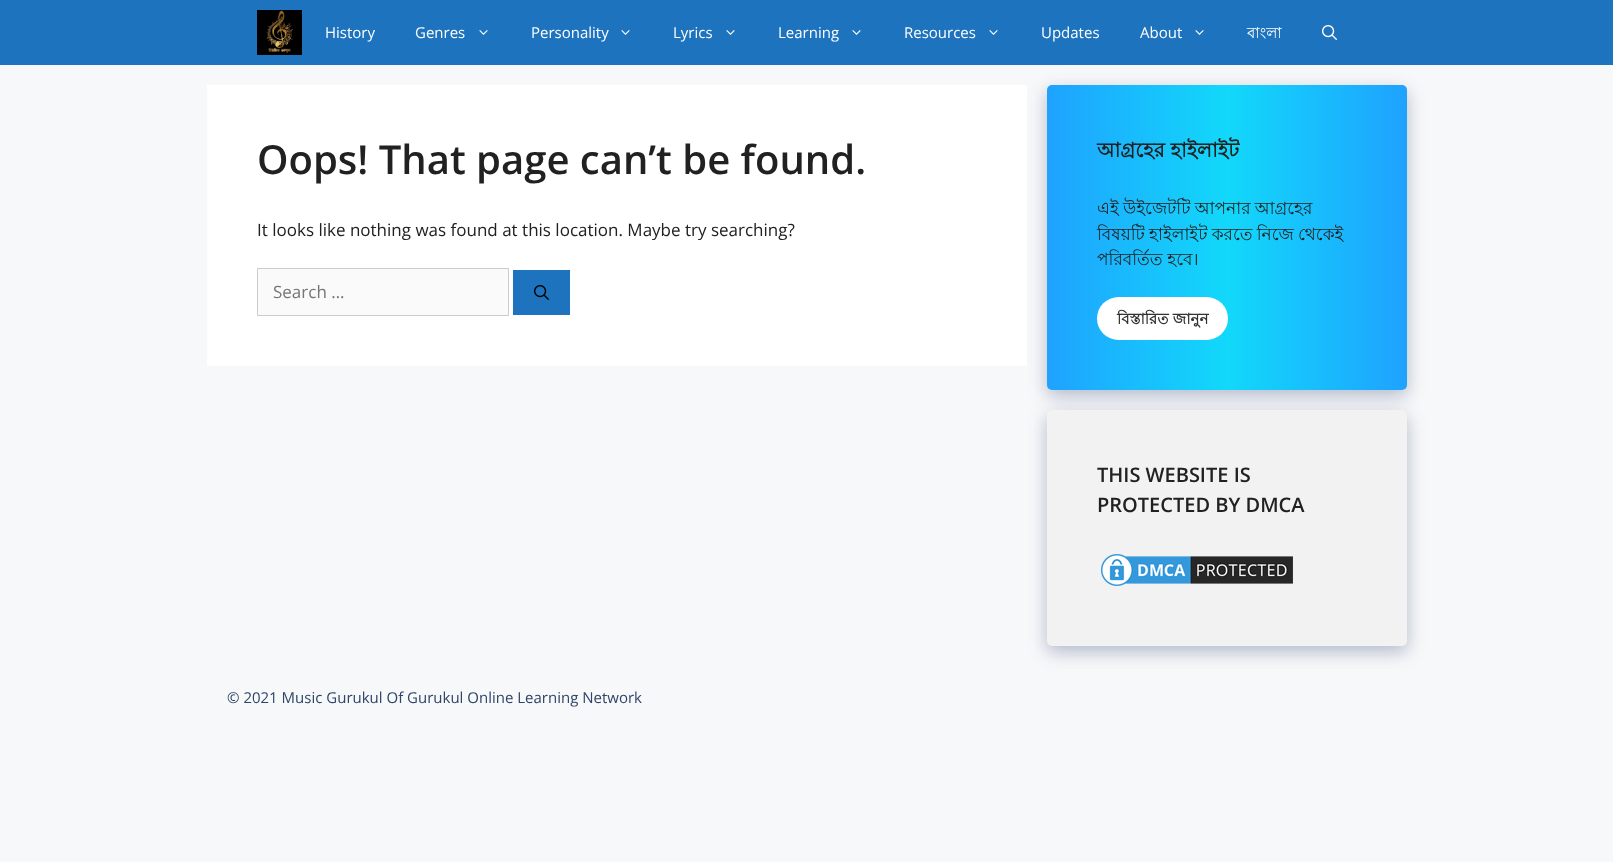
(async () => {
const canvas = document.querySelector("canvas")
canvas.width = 1613
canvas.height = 862
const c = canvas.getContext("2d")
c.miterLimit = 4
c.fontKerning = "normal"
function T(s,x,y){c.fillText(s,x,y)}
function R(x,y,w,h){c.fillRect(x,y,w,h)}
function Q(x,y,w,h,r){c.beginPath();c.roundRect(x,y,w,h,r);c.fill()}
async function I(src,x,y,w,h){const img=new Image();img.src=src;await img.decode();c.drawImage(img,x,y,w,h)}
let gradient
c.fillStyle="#f7f8f9"
R(0,0,1613,862)
c.fillStyle="#1e73be"
R(0,0,1613,65)
await I("1.png",257,10,45,45)
c.font="15px Open Sans"
c.fillStyle="#fff"
T("History",325,38)
T("Genres",415,38)
await I("2.png",479,30,9,5)
T("Personality",531,38)
await I("2.png",621,30,9,5)
T("Lyrics",673,38)
await I("2.png",726,30,9,5)
T("Learning",778,38)
await I("2.png",852,30,9,5)
T("Resources",904,38)
await I("2.png",989,30,9,5)
T("Updates",1041,38)
T("About",1140,38)
await I("2.png",1195,30,9,5)
c.font="15px Lohit Bengali"
T("বাংলা",1247,38)
await I("3.png",1322,25,15,15)
R(207,85,820,281)
c.font="600 40px Open Sans"
c.fillStyle="#212121"
T("Oops! That page can’t be found.",257,174)
c.font="17px Open Sans"
T("It looks like nothing was found at this location. Maybe try searching?",257,236)
c.fillStyle="#fafafa"
c.beginPath()
c.rect(257.5,268.5,251,47)
c.fill()
c.strokeStyle="#ccc"
c.stroke()
c.fillStyle="#757575"
T("Search …",273,298)
c.fillStyle="#1e73be"
R(513,270,57,45)
await I("4.png",534,285,15,15)
c.fillStyle="#172b634d"
c.filter="blur(9px)"
c.beginPath()
c.roundRect(1047,91,360,305,5)
c.fill()
c.filter="none"
gradient = c.createLinearGradient(1047,238,1407,238)
gradient.addColorStop(0,"#1fa2ff")
gradient.addColorStop(.5,"#12d8fa")
gradient.addColorStop(1,"#1fa2ff")
c.fillStyle = gradient
Q(1047,85,360,305,5)
c.font="bold 20px Lohit Bengali"
c.fillStyle="#212121"
T("আগ্রহের হাইলাইট",1097,157)
c.wordSpacing="-0.5px"
c.font="17px Lohit Bengali"
T("এই উইজেটটি আপনার আগ্রহের",1097,214)
T("বিষয়টি হাইলাইট করতে নিজে থেকেই",1097,240)
c.wordSpacing="0px"
T("পরিবর্তিত হবে।",1097,265)
c.fillStyle="#fff"
Q(1097,297,131,43,21.5)
c.font="bold 15px Lohit Bengali"
c.fillStyle="#333"
T("বিস্তারিত জানুন",1117,324)
c.fillStyle="#172b634d"
c.filter="blur(9px)"
c.beginPath()
c.roundRect(1047,416,360,236,5)
c.fill()
c.filter="none"
c.fillStyle="#f2f2f2"
Q(1047,410,360,236,5)
c.font="600 20px Open Sans"
c.fillStyle="#212121"
T("THIS WEBSITE IS",1097,482)
T("PROTECTED BY DMCA",1097,512)
await I("5.png",1101,554,192,32)
c.font="15px Open Sans"
c.fillStyle="#2f4468"
T("© 2021 Music Gurukul Of Gurukul Online Learning Network",227,703)
})()
